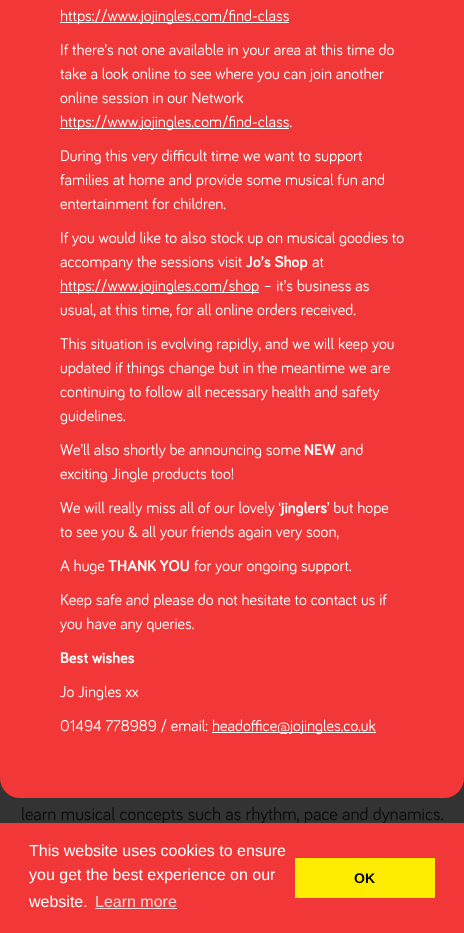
(async () => {
const canvas = document.querySelector("canvas")
canvas.width = 464
canvas.height = 933
const c = canvas.getContext("2d")
c.miterLimit = 4
c.fontKerning = "none"
function T(s,x,y){c.fillText(s,x,y)}
function R(x,y,w,h){c.fillRect(x,y,w,h)}
function Q(x,y,w,h,r){c.beginPath();c.roundRect(x,y,w,h,r);c.fill()}
c.fillStyle="#333"
R(0,0,464,933)
c.fillStyle="#f13738"
Q(0,-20,464,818,20)
c.fillStyle="#fff"
R(60,22,229,1)
c.font="16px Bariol"
T("https://www.jojingles.com/find-class",60,21)
T("If there’s not one available in your area at this time do",60,55)
T("take a look online to see where you can join another",60,79)
T("online session in our Network",60,103)
R(60,128,229,1)
T("https://www.jojingles.com/find-class.",60,127)
T("During this very difficult time we want to support",60,161)
T("families at home and provide some musical fun and",60,185)
T("entertainment for children.",60,209)
T("If you would like to also stock up on musical goodies to",60,243)
T("accompany the sessions visit",60,267)
c.font="bold 16px Bariol"
T("Jo’s Shop",246,267)
c.font="16px Bariol"
T("at",312,267)
R(60,292,199,1)
T("https://www.jojingles.com/shop – it’s business as",60,291)
T("usual, at this time, for all online orders received.",60,315)
T("This situation is evolving rapidly, and we will keep you",60,349)
T("updated if things change but in the meantime we are",60,373)
T("continuing to follow all necessary health and safety",60,397)
T("guidelines.",60,421)
T("We’ll also shortly be announcing some",60,455)
c.font="bold 16px Bariol"
T("NEW",304,455)
c.font="16px Bariol"
T("and",340,455)
T("exciting Jingle products too!",60,479)
T("We will really miss all of our lovely ‘",60,513)
c.font="bold 16px Bariol"
T("jinglers",281,513)
c.font="16px Bariol"
T("’ but hope",327,513)
T("to see you & all your friends again very soon,",60,537)
T("A huge",60,571)
c.font="bold 16px Bariol"
T("THANK YOU",108,571)
c.font="16px Bariol"
T("for your ongoing support.",194,571)
T("Keep safe and please do not hesitate to contact us if",60,605)
T("you have any queries.",60,629)
c.font="bold 16px Bariol"
T("Best wishes",60,663)
c.font="16px Bariol"
T("Jo Jingles xx",60,697)
T("01494 778989 / email:",60,731)
R(212,732,164,1)
T("headoffice@jojingles.co.uk",212,731)
c.font="18px Bariol"
c.fillStyle="#0a0a0a"
T("learn musical concepts such as rhythm, pace and dynamics.",21,820)
c.fillStyle="#f13738"
R(0,823,464,110)
c.font="16px Liberation Sans"
c.fillStyle="#fff"
T("This website uses cookies to ensure",29,856)
T("you get the best experience on our",29,880)
T("website.",29,907)
c.fillStyle="#fcd7d7"
T("Learn more",95,907)
R(95,908,82,1)
c.fillStyle="#feed00"
R(295,858,140,40)
c.font="bold 14px Liberation Sans"
c.fillStyle="#000"
T("OK",354,883)
})()
